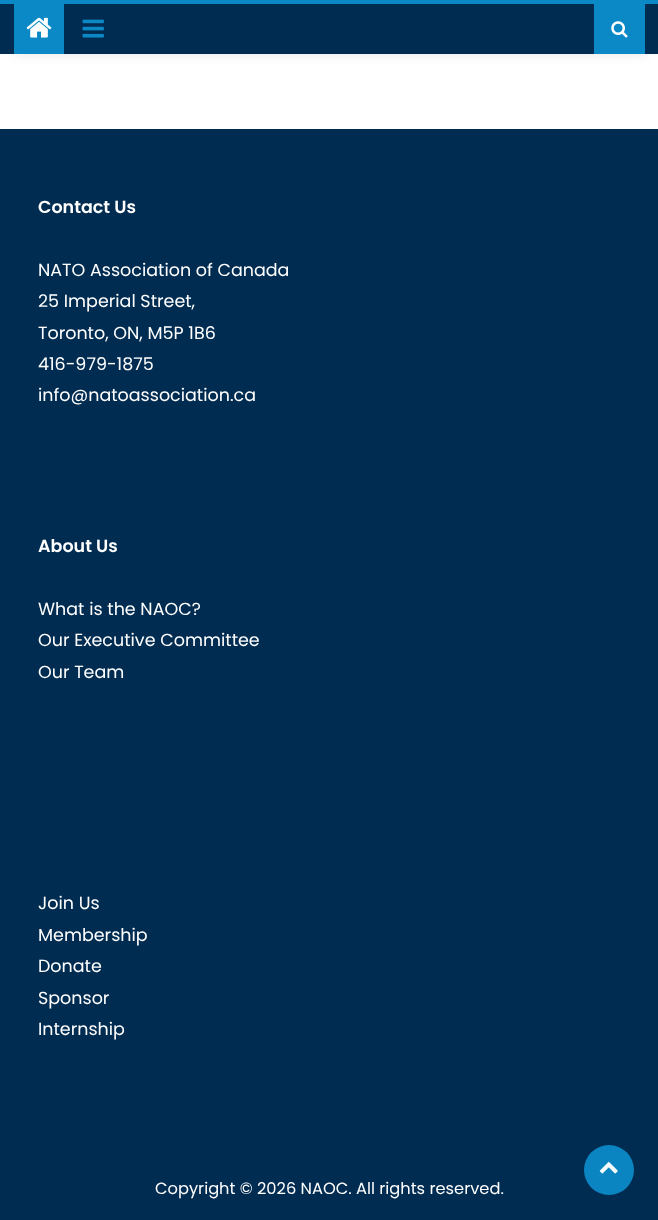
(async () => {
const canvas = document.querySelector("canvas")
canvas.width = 658
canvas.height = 1220
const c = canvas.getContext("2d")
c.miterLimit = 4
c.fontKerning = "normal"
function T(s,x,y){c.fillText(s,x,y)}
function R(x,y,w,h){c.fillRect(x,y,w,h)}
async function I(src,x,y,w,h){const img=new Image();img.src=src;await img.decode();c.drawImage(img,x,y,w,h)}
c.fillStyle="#fff"
R(0,0,658,1220)
c.fillStyle="#0000001a"
c.filter="blur(6px)"
c.beginPath()
c.rect(14,-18,631,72)
c.fill()
c.filter="none"
c.fillStyle="#002c51"
R(0,4,658,50)
c.fillStyle="#0b89c6"
R(0,0,658,4)
R(14,4,50,50)
await I("1.png",26,17,26,21)
await I("2.png",82,19,22,19)
R(594,4,51,50)
await I("3.png",611,21,17,17)
c.fillStyle="#002c51"
R(0,129,658,1091)
c.font="600 17.5px Poppins"
c.fillStyle="#fff"
T("Contact Us",38,213)
c.font="17.5px Poppins"
T("NATO Association of Canada",38,276)
T("25 Imperial Street,",38,307)
T("Toronto, ON, M5P 1B6",38,339)
T("416-979-1875",38,370)
T("info@natoassociation.ca",38,401)
c.font="600 17.5px Poppins"
T("About Us",38,552)
c.font="17.5px Poppins"
T("What is the NAOC?",38,615)
T("Our Executive Committee",38,646)
T("Our Team",38,678)
T("Join Us",38,909)
T("Membership",38,941)
T("Donate",38,972)
T("Sponsor",38,1004)
T("Internship",38,1035)
c.font="16.25px Poppins"
T("Copyright © 2026 NAOC. All rights reserved.",155,1194)
c.fillStyle="#0b85c1"
c.beginPath()
c.arc(609,1170,25,0,7)
c.fill()
await I("4.png",599,1162,19,12)
})()
